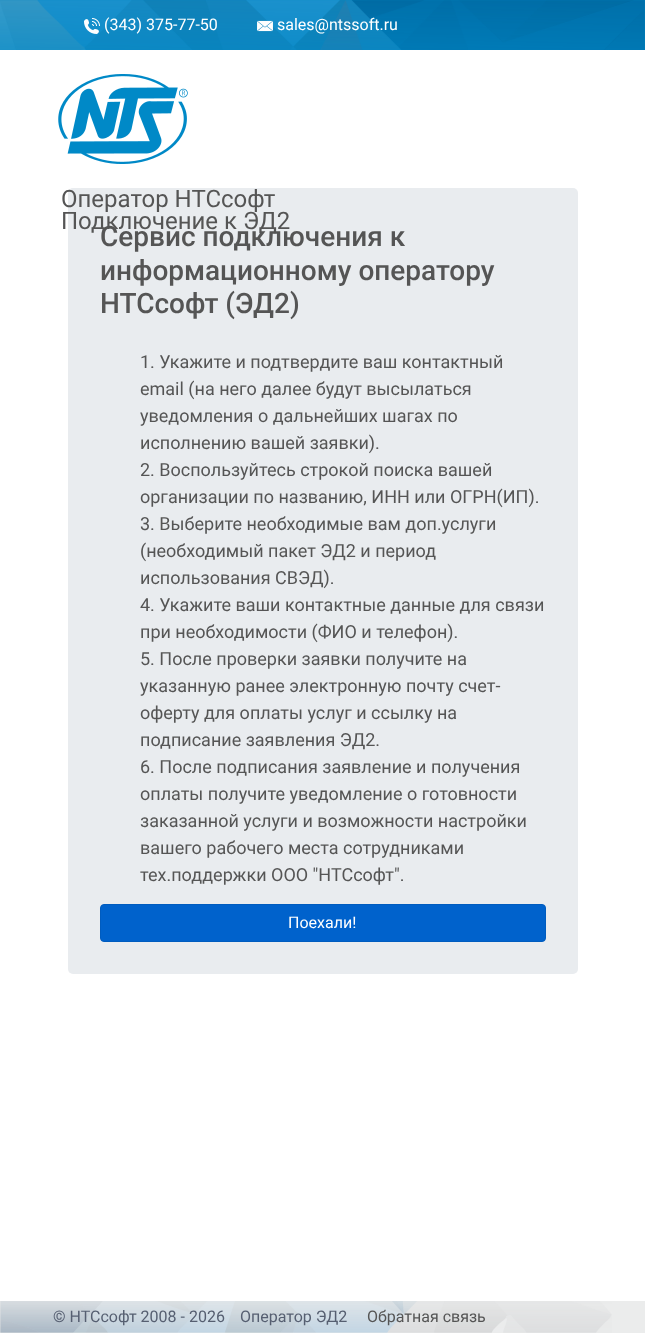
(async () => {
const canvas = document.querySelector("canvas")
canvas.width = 645
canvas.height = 1334
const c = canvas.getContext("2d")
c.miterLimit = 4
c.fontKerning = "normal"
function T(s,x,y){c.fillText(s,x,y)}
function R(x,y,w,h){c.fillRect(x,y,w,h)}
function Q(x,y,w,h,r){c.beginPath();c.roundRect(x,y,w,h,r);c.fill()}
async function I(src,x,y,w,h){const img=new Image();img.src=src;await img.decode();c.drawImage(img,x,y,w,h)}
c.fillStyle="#fff"
R(0,0,645,1334)
c.fillStyle="#0089c7"
R(0,0,645,50)
await I("1.png",0,0,645,50)
await I("2.png",84,18,16,16)
c.font="16px Roboto"
c.fillStyle="#fff"
T("(343) 375-77-50",104,30)
await I("3.png",257,20,16,12)
T("sales@ntssoft.ru",277,30)
await I("4.png",58,74,130,90)
c.fillStyle="#e9ecef"
Q(68,188,510,786,5)
c.font="24px Roboto"
c.fillStyle="#555"
T("Оператор НТСсофт",61,207)
T("Подключение к ЭД2",61,229)
c.font="500 28px Roboto"
T("Сервис подключения к",100,246)
T("информационному оператору",100,280)
T("НТСсофт (ЭД2)",100,313)
c.font="18px Roboto"
T("1. Укажите и подтвердите ваш контактный",140,368)
T("email (на него далее будут высылаться",140,395)
T("уведомления о дальнейших шагах по",140,422)
T("исполнению вашей заявки).",140,449)
T("2. Воспользуйтесь строкой поиска вашей",140,476)
T("организации по названию, ИНН или ОГРН(ИП).",140,503)
T("3. Выберите необходимые вам доп.услуги",140,530)
T("(необходимый пакет ЭД2 и период",140,557)
T("использования СВЭД).",140,584)
T("4. Укажите ваши контактные данные для связи",140,611)
T("при необходимости (ФИО и телефон).",140,638)
T("5. После проверки заявки получите на",140,665)
T("указанную ранее электронную почту счет-",140,692)
T("оферту для оплаты услуг и ссылку на",140,719)
T("подписание заявления ЭД2.",140,746)
T("6. После подписания заявление и получения",140,773)
T("оплаты получите уведомление о готовности",140,800)
T("заказанной услуги и возможности настройки",140,827)
T("вашего рабочего места сотрудниками",140,854)
T("тех.поддержки ООО \"НТСсофт\".",140,881)
c.fillStyle="#0062cc"
c.beginPath()
c.roundRect(100.5,904.5,445,37,3.5)
c.fill()
c.strokeStyle="#005cbf"
c.stroke()
c.font="16px Roboto"
c.fillStyle="#fff"
T("Поехали!",288,928)
c.fillStyle="#ebecec"
R(0,1301,645,32)
await I("5.png",0,1301,612,32)
c.fillStyle="#565f71"
T("© НТСсофт 2008 - 2026",53,1322)
T("Оператор ЭД2",240,1322)
c.fillStyle="#555"
T("Обратная связь",367,1322)
})()
